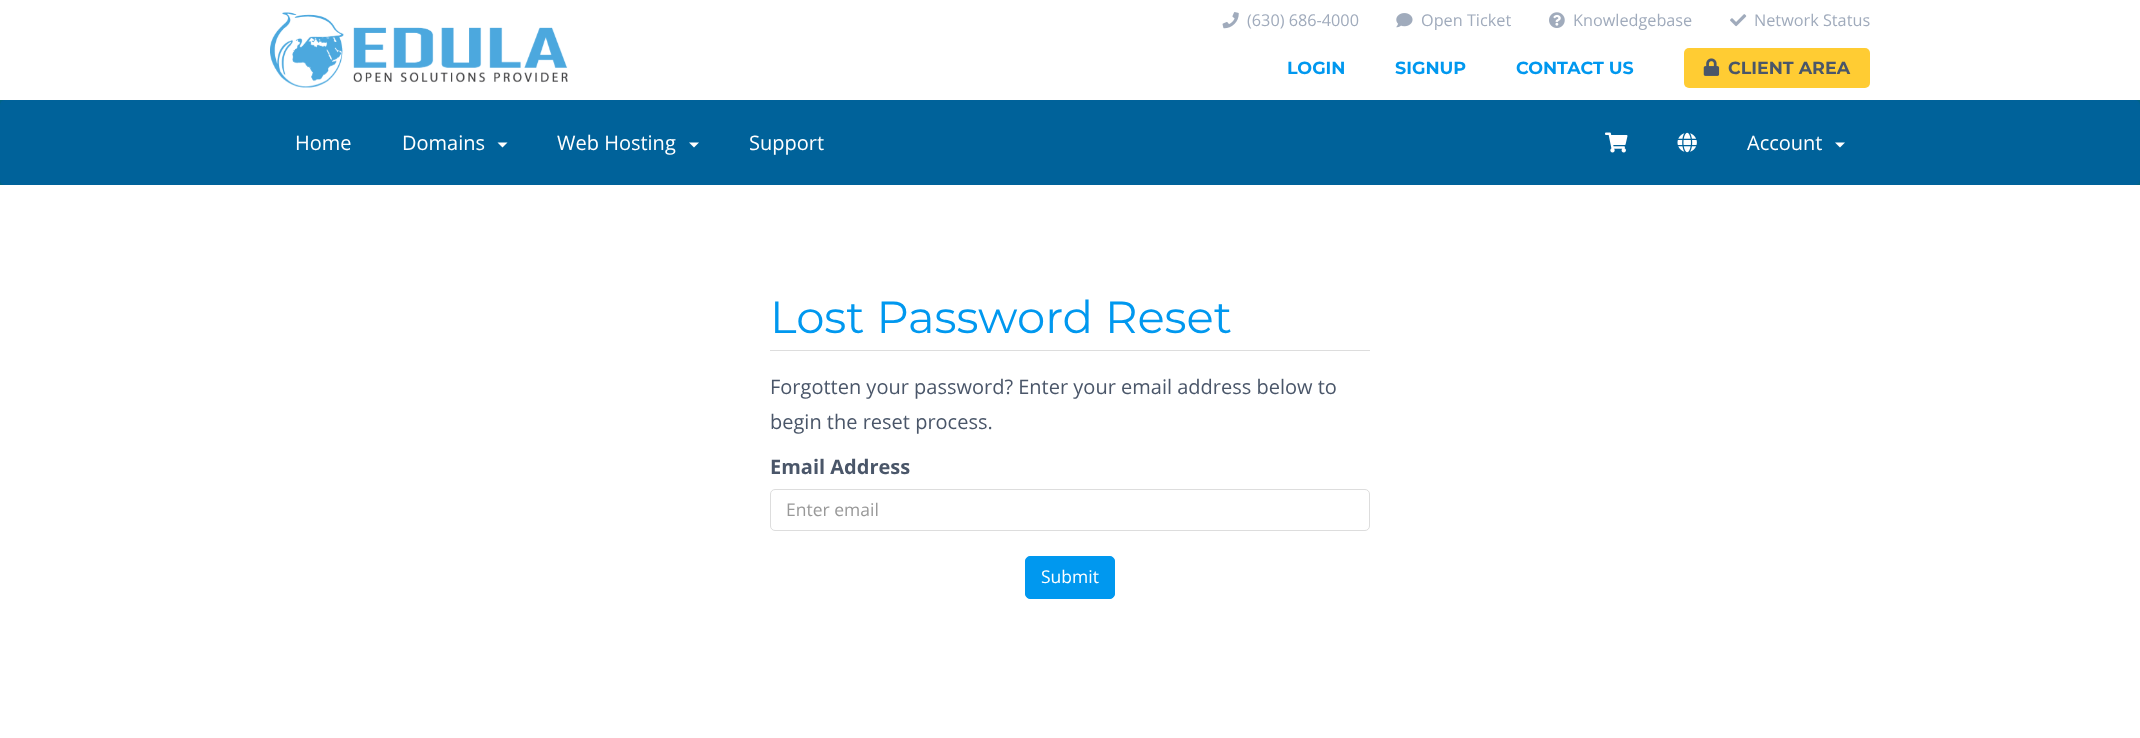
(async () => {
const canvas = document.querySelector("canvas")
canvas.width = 2140
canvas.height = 738
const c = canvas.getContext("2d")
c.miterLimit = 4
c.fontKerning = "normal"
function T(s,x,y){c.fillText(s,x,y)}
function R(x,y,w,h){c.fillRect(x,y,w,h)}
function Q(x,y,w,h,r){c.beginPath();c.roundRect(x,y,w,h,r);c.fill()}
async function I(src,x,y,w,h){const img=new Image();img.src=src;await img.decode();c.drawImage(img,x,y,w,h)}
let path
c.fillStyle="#006687"
R(0,0,2140,738)
c.fillStyle="#fff"
R(0,0,2140,100)
await I("1.png",270,12,298,76)
await I("2.png",1222,12,17,17)
c.font="16.25px Open Sans"
c.fillStyle="#a0abbc"
T("(630) 686-4000",1247,26)
await I("3.png",1396,13,17,15)
T("Open Ticket",1421,26)
await I("4.png",1549,12,16,16)
T("Knowledgebase",1573,26)
await I("5.png",1730,14,17,13)
T("Network Status",1754,26)
c.font="bold 17.5px Montserrat"
c.fillStyle="#0098ef"
T("LOGIN",1287,74)
T("SIGNUP",1395,74)
T("CONTACT US",1516,74)
c.fillStyle="#fc3"
Q(1684,48,186,40,5)
await I("6.png",1703,58,17,18)
c.fillStyle="#4a5669"
T("CLIENT AREA",1728,74)
c.fillStyle="#00629a"
Q(0,100,2140,85,5)
c.font="20px Open Sans"
c.fillStyle="#fff"
T("Home",295,150)
T("Domains",402,150)
path = new Path2D("M497.5 142.5h10l-5 5z")
c.fill(path)
T("Web Hosting",557,150)
path = new Path2D("M689 142.5h10l-5 5z")
c.fill(path)
T("Support",749,150)
await I("7.png",1605,132,23,21)
await I("8.png",1677,132,20,21)
T("Account",1747,150)
path = new Path2D("M1835 142.5h10l-5 5z")
c.fill(path)
R(0,185,2140,553)
c.fillStyle="#ddd"
R(770,350,600,1)
c.font="45px Montserrat"
c.fillStyle="#0098ef"
T("Lost Password Reset",770,333)
c.font="20px Open Sans"
c.fillStyle="#4a5669"
T("Forgotten your password? Enter your email address below to",770,394)
T("begin the reset process.",770,429)
c.font="bold 20px Open Sans"
T("Email Address",770,474)
c.beginPath()
c.roundRect(770.5,489.5,599,41,4.5)
c.strokeStyle="#ddd"
c.stroke()
c.font="17.5px Open Sans"
c.fillStyle="#999"
T("Enter email",786,516)
c.fillStyle="#0098ef"
c.beginPath()
c.roundRect(1025.5,556.5,89,42,4.5)
c.fill()
c.strokeStyle="#0098ef"
c.stroke()
c.fillStyle="#fff"
T("Submit",1041,583)
})()
